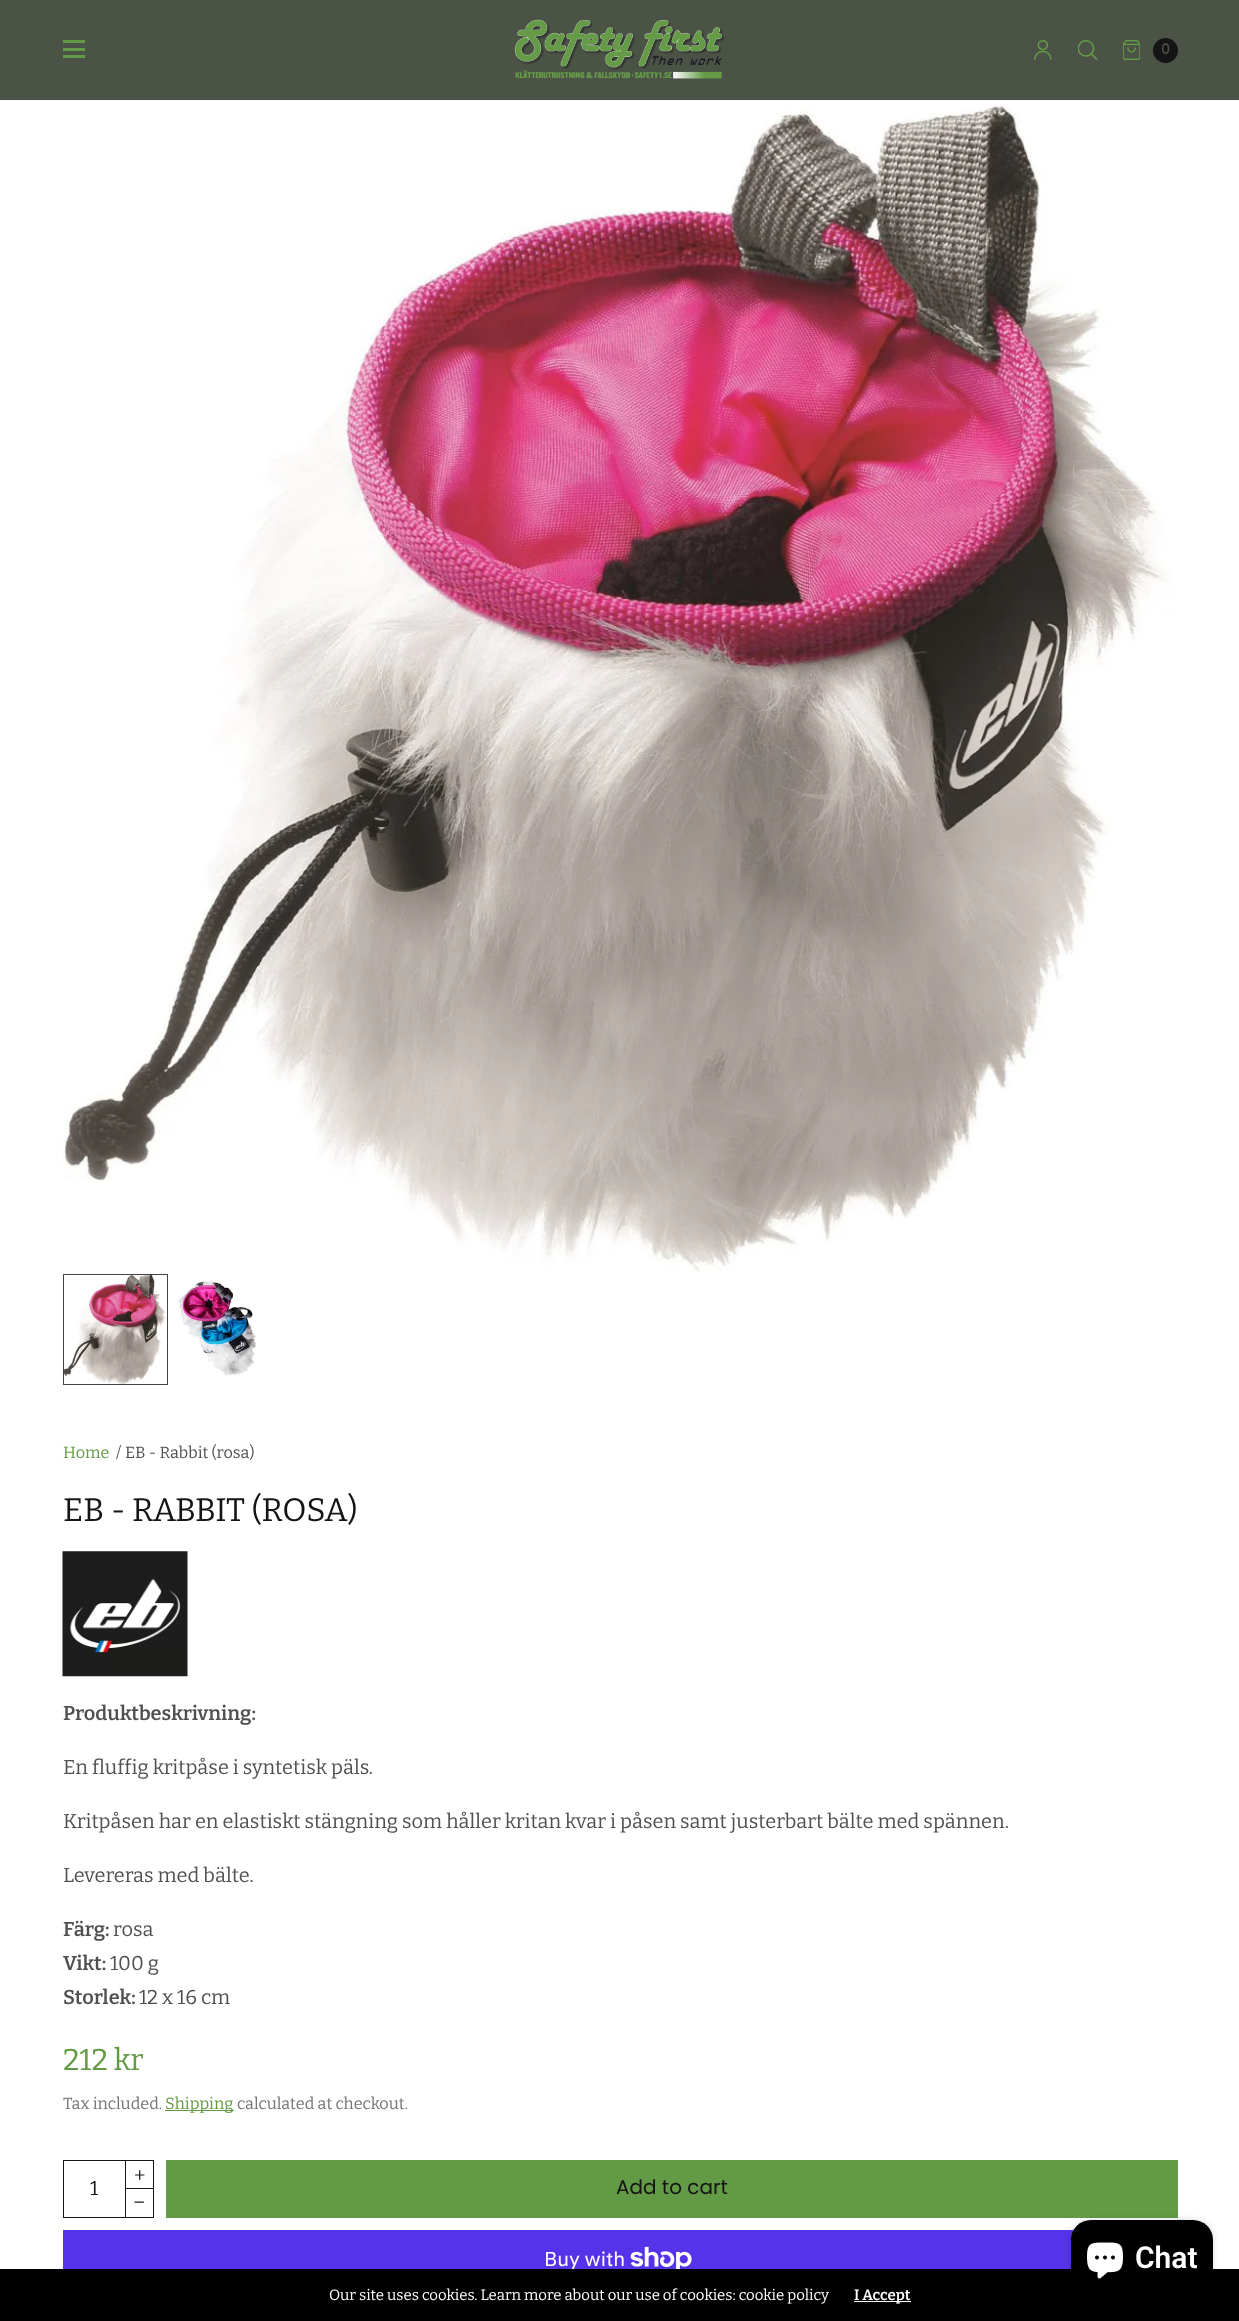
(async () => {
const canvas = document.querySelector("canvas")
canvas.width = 1239
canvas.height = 2321
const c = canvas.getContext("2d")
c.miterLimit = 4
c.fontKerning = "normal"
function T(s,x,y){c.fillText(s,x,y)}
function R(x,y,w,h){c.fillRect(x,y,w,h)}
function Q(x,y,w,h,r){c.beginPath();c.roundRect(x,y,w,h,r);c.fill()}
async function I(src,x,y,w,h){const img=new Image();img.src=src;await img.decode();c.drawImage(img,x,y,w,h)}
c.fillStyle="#fff"
R(0,0,1239,2321)
c.fillStyle="#4b5246"
R(0,0,1239,100)
c.fillStyle="#f4f4f4"
R(0,100,1239,1)
c.fillStyle="#639a45"
R(63,40,22,3)
R(63,48,22,3)
R(63,55,22,3)
await I("1.png",514,19,211,60)
await I("2.png",1034,40,18,20)
await I("3.png",1078,40,20,20)
await I("4.png",1123,40,17,20)
c.fillStyle="#151515"
c.beginPath()
c.arc(1165.5,50.5,12.5,0,7)
c.fill()
c.font="bold 14px Poppins"
c.fillStyle="#4b5246"
T("0",1161,54)
await I("5.png",63,105,1109,1168)
await I("6.png",62,1274,104,111)
c.strokeStyle="#444"
c.strokeRect(63.5,1274.5,104,110)
await I("7.png",178,1280,79,96)
c.font="16.25px Bitter"
c.fillStyle="#639a45"
T("Home",63,1458)
c.fillStyle="#505050"
T("/",116,1458)
T("EB - Rabbit (rosa)",125,1458)
c.font="32.5px Bitter"
c.fillStyle="#151515"
T("EB - RABBIT (ROSA)",63,1521)
await I("8.png",62,1551,126,126)
c.font="600 20px Bitter"
c.fillStyle="#505050"
T("Produktbeskrivning:",63,1720)
c.font="20px Bitter"
T("En fluffig kritpåse i syntetisk päls.",63,1774)
T("Kritpåsen har en elastiskt stängning som håller kritan kvar i påsen samt justerbart bälte med spännen.",63,1828)
T("Levereras med bälte.",63,1882)
c.font="600 20px Bitter"
T("Färg:",63,1936)
c.font="20px Bitter"
T("rosa",113,1936)
c.font="600 20px Bitter"
T("Vikt:",63,1970)
c.font="20px Bitter"
T("100 g",110,1970)
c.font="600 20px Bitter"
T("Storlek:",63,2004)
c.font="20px Bitter"
T("12 x 16 cm",139,2004)
c.font="30px Bitter"
c.fillStyle="#639a45"
T("212 kr",63,2070)
c.font="16.25px Bitter"
c.fillStyle="#737373"
T("Tax included.",63,2109)
c.fillStyle="#639a45"
R(165,2110,69,1)
T("Shipping",165,2109)
c.fillStyle="#737373"
T("calculated at checkout.",237,2109)
c.strokeStyle="#151515"
c.strokeRect(63.5,2160.5,62,57)
c.strokeRect(125.5,2160.5,28,28)
c.font="20px Bitter"
c.fillStyle="#151515"
T("+",134,2182)
T("1",90,2195)
c.strokeRect(125.5,2188.5,28,29)
T("–",133,2208)
c.fillStyle="#639a45"
R(166,2160,1012,58)
c.font="20px Poppins"
c.fillStyle="#151515"
T("Add to cart",616,2194)
c.fillStyle="#5433eb"
R(63,2230,1011,39)
c.font="20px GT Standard"
c.fillStyle="#fff"
T("Buy with",544,2266)
await I("9.png",630,2246,62,23)
c.fillStyle="#000"
R(0,2269,1239,52)
c.fillStyle="#00000026"
c.filter="blur(3px)"
c.beginPath()
c.roundRect(1071,2220,142,75,20)
c.fill()
c.filter="none"
c.fillStyle="#000"
Q(1071,2220,142,75,20)
await I("10.png",1087,2242,36,37)
c.font="600 30px Roboto"
c.fillStyle="#fff"
T("Chat",1135,2268)
c.font="15px Bitter"
T("Our site uses cookies. Learn more about our use of cookies: cookie policy",329,2300)
R(854,2301,57,1)
c.font="600 15px Bitter"
T("I Accept",854,2300)
})()
